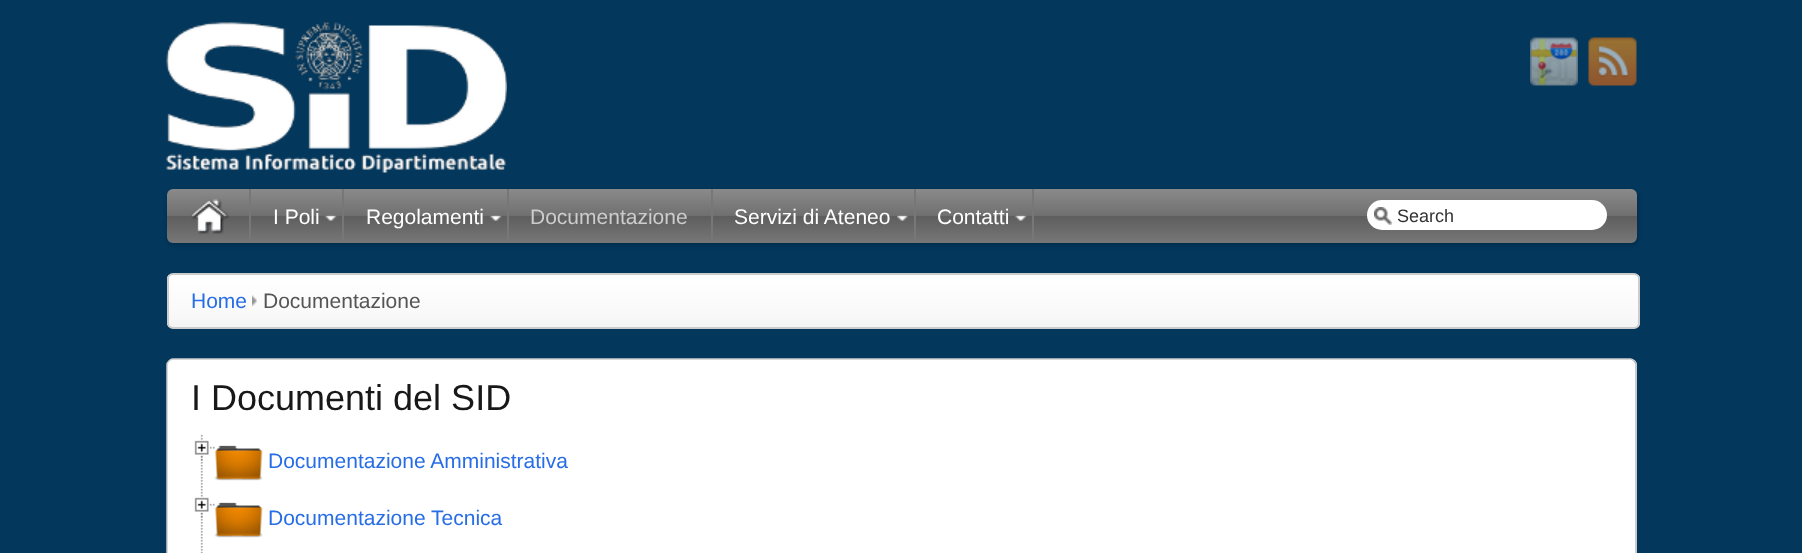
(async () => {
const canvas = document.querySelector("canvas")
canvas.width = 1802
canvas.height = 553
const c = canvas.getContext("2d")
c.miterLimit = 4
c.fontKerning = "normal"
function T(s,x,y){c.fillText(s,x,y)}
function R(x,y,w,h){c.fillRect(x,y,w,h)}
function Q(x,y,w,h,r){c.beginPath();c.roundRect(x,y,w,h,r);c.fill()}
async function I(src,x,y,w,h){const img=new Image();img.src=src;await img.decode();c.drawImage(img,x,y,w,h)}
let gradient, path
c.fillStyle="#03375c"
R(0,0,1802,553)
await I("1.png",166,22,341,151)
await I("2.png",1530,37,48,49)
await I("3.png",1588,37,49,49)
c.fillStyle="#00000033"
c.filter="blur(2px)"
c.beginPath()
c.roundRect(168,191,1470,54,6)
c.fill()
c.filter="none"
gradient = c.createLinearGradient(902,189,902,243)
gradient.addColorStop(0,"#8a8a8a")
gradient.addColorStop(.49,"#707070")
gradient.addColorStop(.51,"#5e5e5e")
gradient.addColorStop(1,"#777")
c.fillStyle = gradient
Q(167,189,1470,54,6)
c.fillStyle="#777"
R(249,189,2,53)
await I("4.png",190,199,39,35)
await I("5.png",325,215,12,6)
R(342,189,2,54)
c.font="21px Liberation Sans"
c.fillStyle="#fff"
T("I Poli",273,224)
await I("5.png",490,215,12,6)
c.fillStyle="#777"
R(507,189,2,54)
c.fillStyle="#fff"
T("Regolamenti",366,224)
c.fillStyle="#777"
R(711,189,2,54)
c.fillStyle="#ccc"
T("Documentazione",530,224)
await I("6.png",897,215,11,6)
c.fillStyle="#777"
R(914,189,2,54)
c.fillStyle="#fff"
T("Servizi di Ateneo",734,224)
await I("5.png",1015,215,12,6)
c.fillStyle="#777"
R(1032,189,2,54)
c.fillStyle="#fff"
T("Contatti",937,224)
Q(1367,200,240,30,15)
await I("7.png",1374,207,18,18)
c.font="18px Liberation Sans"
c.fillStyle="#333"
T("Search",1397,222)
c.save()
c.beginPath()
c.roundRect(167,273,1473,56,6)
c.clip()
gradient = c.createLinearGradient(903,274,903,327)
gradient.addColorStop(0,"#fff")
gradient.addColorStop(.75,"#f9f9f9")
gradient.addColorStop(1,"#f4f4f4")
c.fillStyle = gradient
R(167,275,1473,52)
c.restore()
c.beginPath()
c.roundRect(168,274,1471,54,5)
c.strokeStyle="#ccc"
c.lineWidth=2
c.stroke()
c.font="21px Liberation Sans"
c.fillStyle="#276de6"
T("Home",191,308)
await I("8.png",252,295,5,12)
c.fillStyle="#555"
T("Documentazione",263,308)
c.fillStyle="#fff"
Q(167,359,1470,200,6)
path = new Path2D("M1634 361c1 1 2 2 2 3.5v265.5c0 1.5-1 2.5-2 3.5c-1 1-2 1.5-3.5 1.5h-1458c-1.5 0-2.5-.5-3.5-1.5")
c.strokeStyle="#bbb"
c.lineWidth=1.5
c.stroke(path)
path = new Path2D("M169 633.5c-1-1-2-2-2-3.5v-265.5c0-1.5 1-2.5 2-3.5c1-1 2-2 3.5-2h1458c1.5 0 2.5 1 3.5 2")
c.strokeStyle="#ccc"
c.stroke(path)
c.font="36px Liberation Sans"
c.fillStyle="#181818"
T("I Documenti del SID",191,410)
await I("9.png",200,434,3,57)
await I("10.png",194,440,21,21)
await I("11.png",214,445,49,36)
c.font="21px Liberation Sans"
c.fillStyle="#276de6"
T("Documentazione Amministrativa",268,468)
await I("9.png",200,491,3,57)
await I("10.png",194,497,21,21)
await I("11.png",214,502,49,36)
T("Documentazione Tecnica",268,525)
await I("12.png",200,548,3,5)
})()
